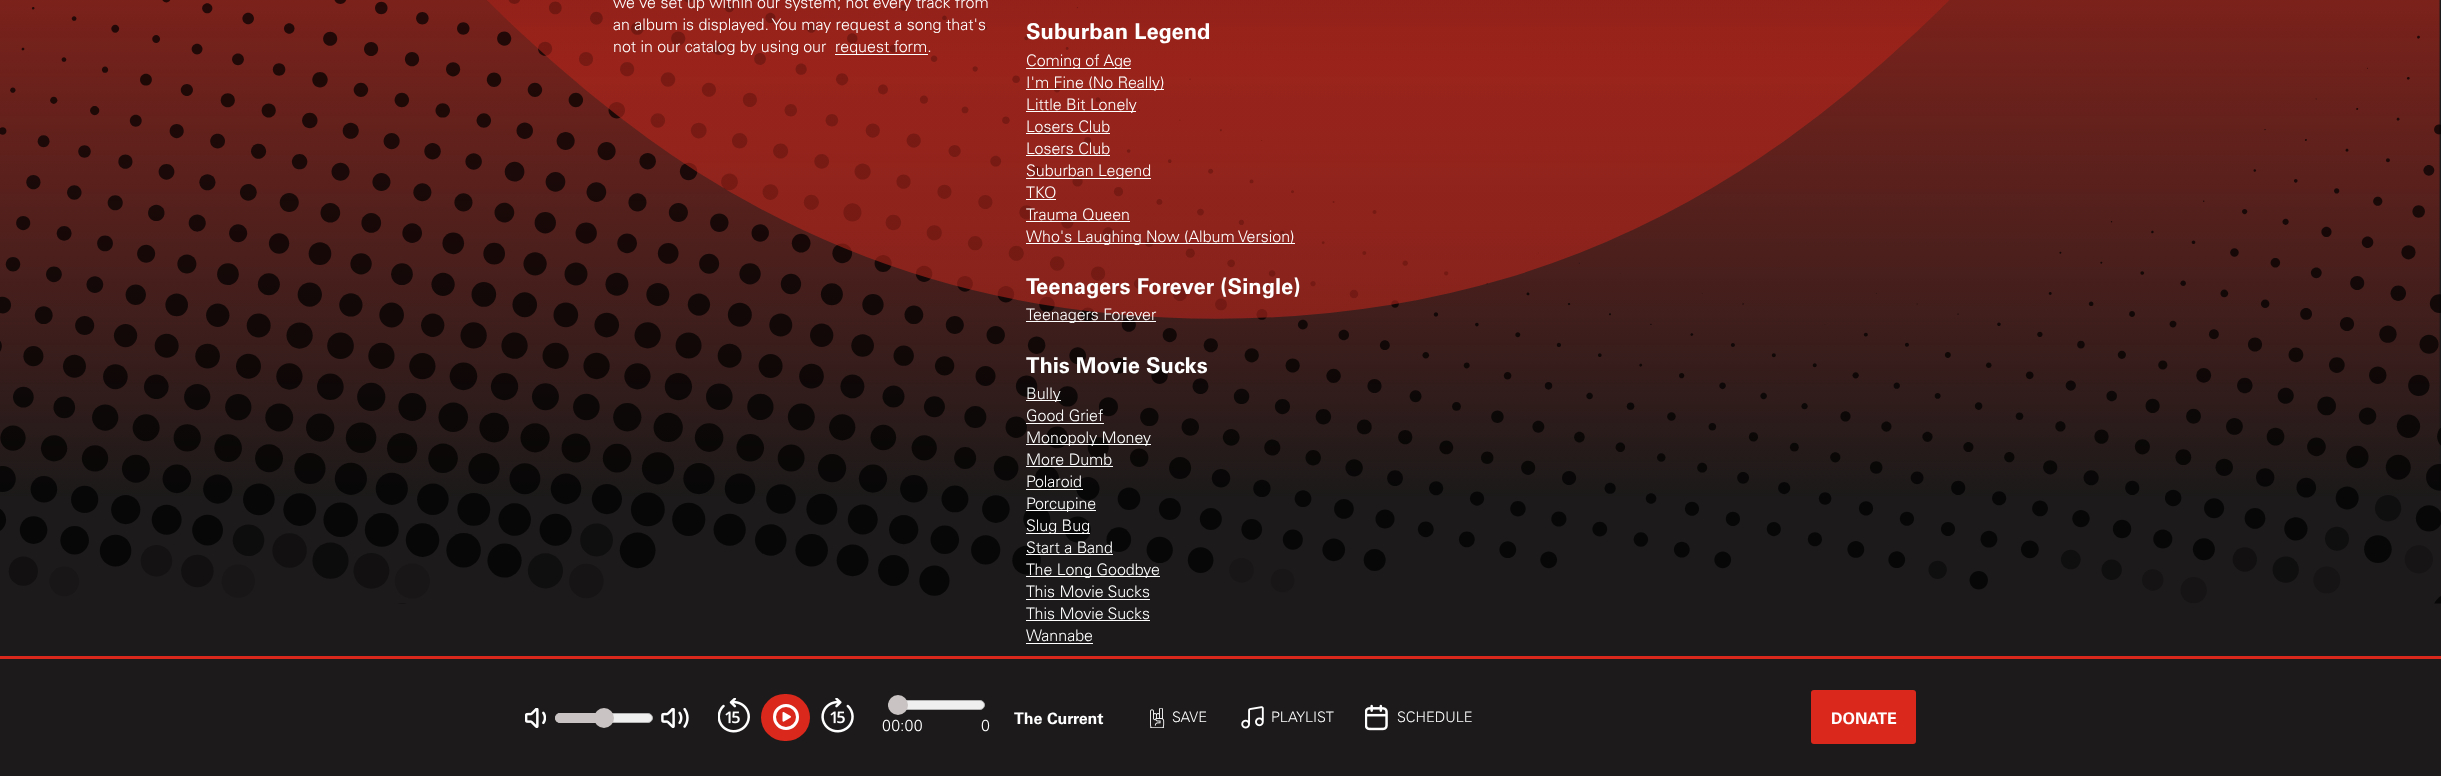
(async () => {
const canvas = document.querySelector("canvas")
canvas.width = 2441
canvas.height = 776
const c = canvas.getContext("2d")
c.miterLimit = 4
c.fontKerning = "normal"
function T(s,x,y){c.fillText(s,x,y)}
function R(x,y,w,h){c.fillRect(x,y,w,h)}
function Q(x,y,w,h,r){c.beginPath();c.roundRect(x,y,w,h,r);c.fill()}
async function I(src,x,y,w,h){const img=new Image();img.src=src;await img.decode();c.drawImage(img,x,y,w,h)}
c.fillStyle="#1c1a1a"
R(0,0,2441,776)
await I("1.png",0,0,2441,604)
c.font="300 16px Univers"
c.fillStyle="#fff"
T("we've set up within our system; not every track from",613,8)
T("an album is displayed. You may request a song that's",613,30)
T("not in our catalog by using our",613,52)
R(835,54,93,1)
T("request form.",835,52)
c.font="bold 21.9px Univers"
T("Suburban Legend",1026,39)
R(1026,68,105,1)
c.font="300 16px Univers"
T("Coming of Age",1026,66)
R(1026,89,138,1)
T("I'm Fine (No Really)",1026,88)
R(1026,111,110,1)
T("Little Bit Lonely",1026,110)
T("Losers Club",1026,132)
R(1026,133,84,1)
T("Losers Club",1026,154)
R(1026,155,84,1)
R(1026,178,125,1)
T("Suburban Legend",1026,176)
T("TKO",1026,198)
R(1026,199,30,1)
T("Trauma Queen",1026,220)
R(1026,221,104,1)
R(1026,243,269,1)
T("Who's Laughing Now (Album Version)",1026,242)
c.font="bold 21.9px Univers"
T("Teenagers Forever (Single)",1026,294)
R(1026,321,130,1)
c.font="300 16px Univers"
T("Teenagers Forever",1026,320)
c.font="bold 21.9px Univers"
T("This Movie Sucks",1026,373)
R(1026,400,35,1)
c.font="300 16px Univers"
T("Bully",1026,399)
T("Good Grief",1026,421)
R(1026,423,78,1)
R(1026,444,125,1)
T("Monopoly Money",1026,443)
T("More Dumb",1026,465)
R(1026,466,87,1)
T("Polaroid",1026,487)
R(1026,489,57,1)
R(1026,510,70,1)
T("Porcupine",1026,509)
R(1026,533,64,1)
T("Slug Bug",1026,531)
T("Start a Band",1026,553)
R(1026,554,87,1)
R(1026,576,134,1)
T("The Long Goodbye",1026,575)
T("This Movie Sucks",1026,597)
R(1026,599,124,1)
T("This Movie Sucks",1026,619)
R(1026,620,124,1)
T("Wannabe",1026,641)
R(1026,643,67,1)
c.fillStyle="#da291c"
R(0,656,2441,3)
await I("2.png",525,708,21,20)
c.fillStyle="#efefef"
c.beginPath()
c.roundRect(555.5,713.5,97,9,4.5)
c.fill()
c.strokeStyle="#b2b2b2"
c.stroke()
c.fillStyle="#c9c3c3"
c.beginPath()
c.roundRect(555,713,49,10,[5,0,0,5])
c.fill()
c.beginPath()
c.arc(604,718,10,0,7)
c.fill()
await I("3.png",661,708,28,20)
await I("4.png",718,698,32,35)
c.fillStyle="#da291c"
Q(761,694,49,47,23.5)
await I("5.png",782,712,9,10)
c.beginPath()
c.arc(786,717,11.5,0,7)
c.strokeStyle="#fff"
c.lineWidth=3
c.stroke()
await I("6.png",821,698,33,35)
c.fillStyle="#efefef"
c.beginPath()
c.roundRect(888.5,700.5,96,9,4.5)
c.fill()
c.strokeStyle="#b2b2b2"
c.lineWidth=1
c.stroke()
c.fillStyle="#c9c3c3"
c.beginPath()
c.arc(898,705,10,0,7)
c.fill()
c.fillStyle="#fff"
T("00:00",882,731)
T("0",981,731)
c.font="bold 16px Univers"
T("The Current",1014,724)
await I("7.png",1150,708,15,20)
c.font="300 14.5px Univers"
T("SAVE",1172,722)
await I("8.png",1241,706,23,23)
T("PLAYLIST",1271,722)
await I("9.png",1365,704,23,27)
T("SCHEDULE",1397,722)
c.fillStyle="#da291c"
Q(1811,690,105,54,3)
c.font="bold 16px Univers"
c.fillStyle="#fff"
T("DONATE",1831,724)
})()
